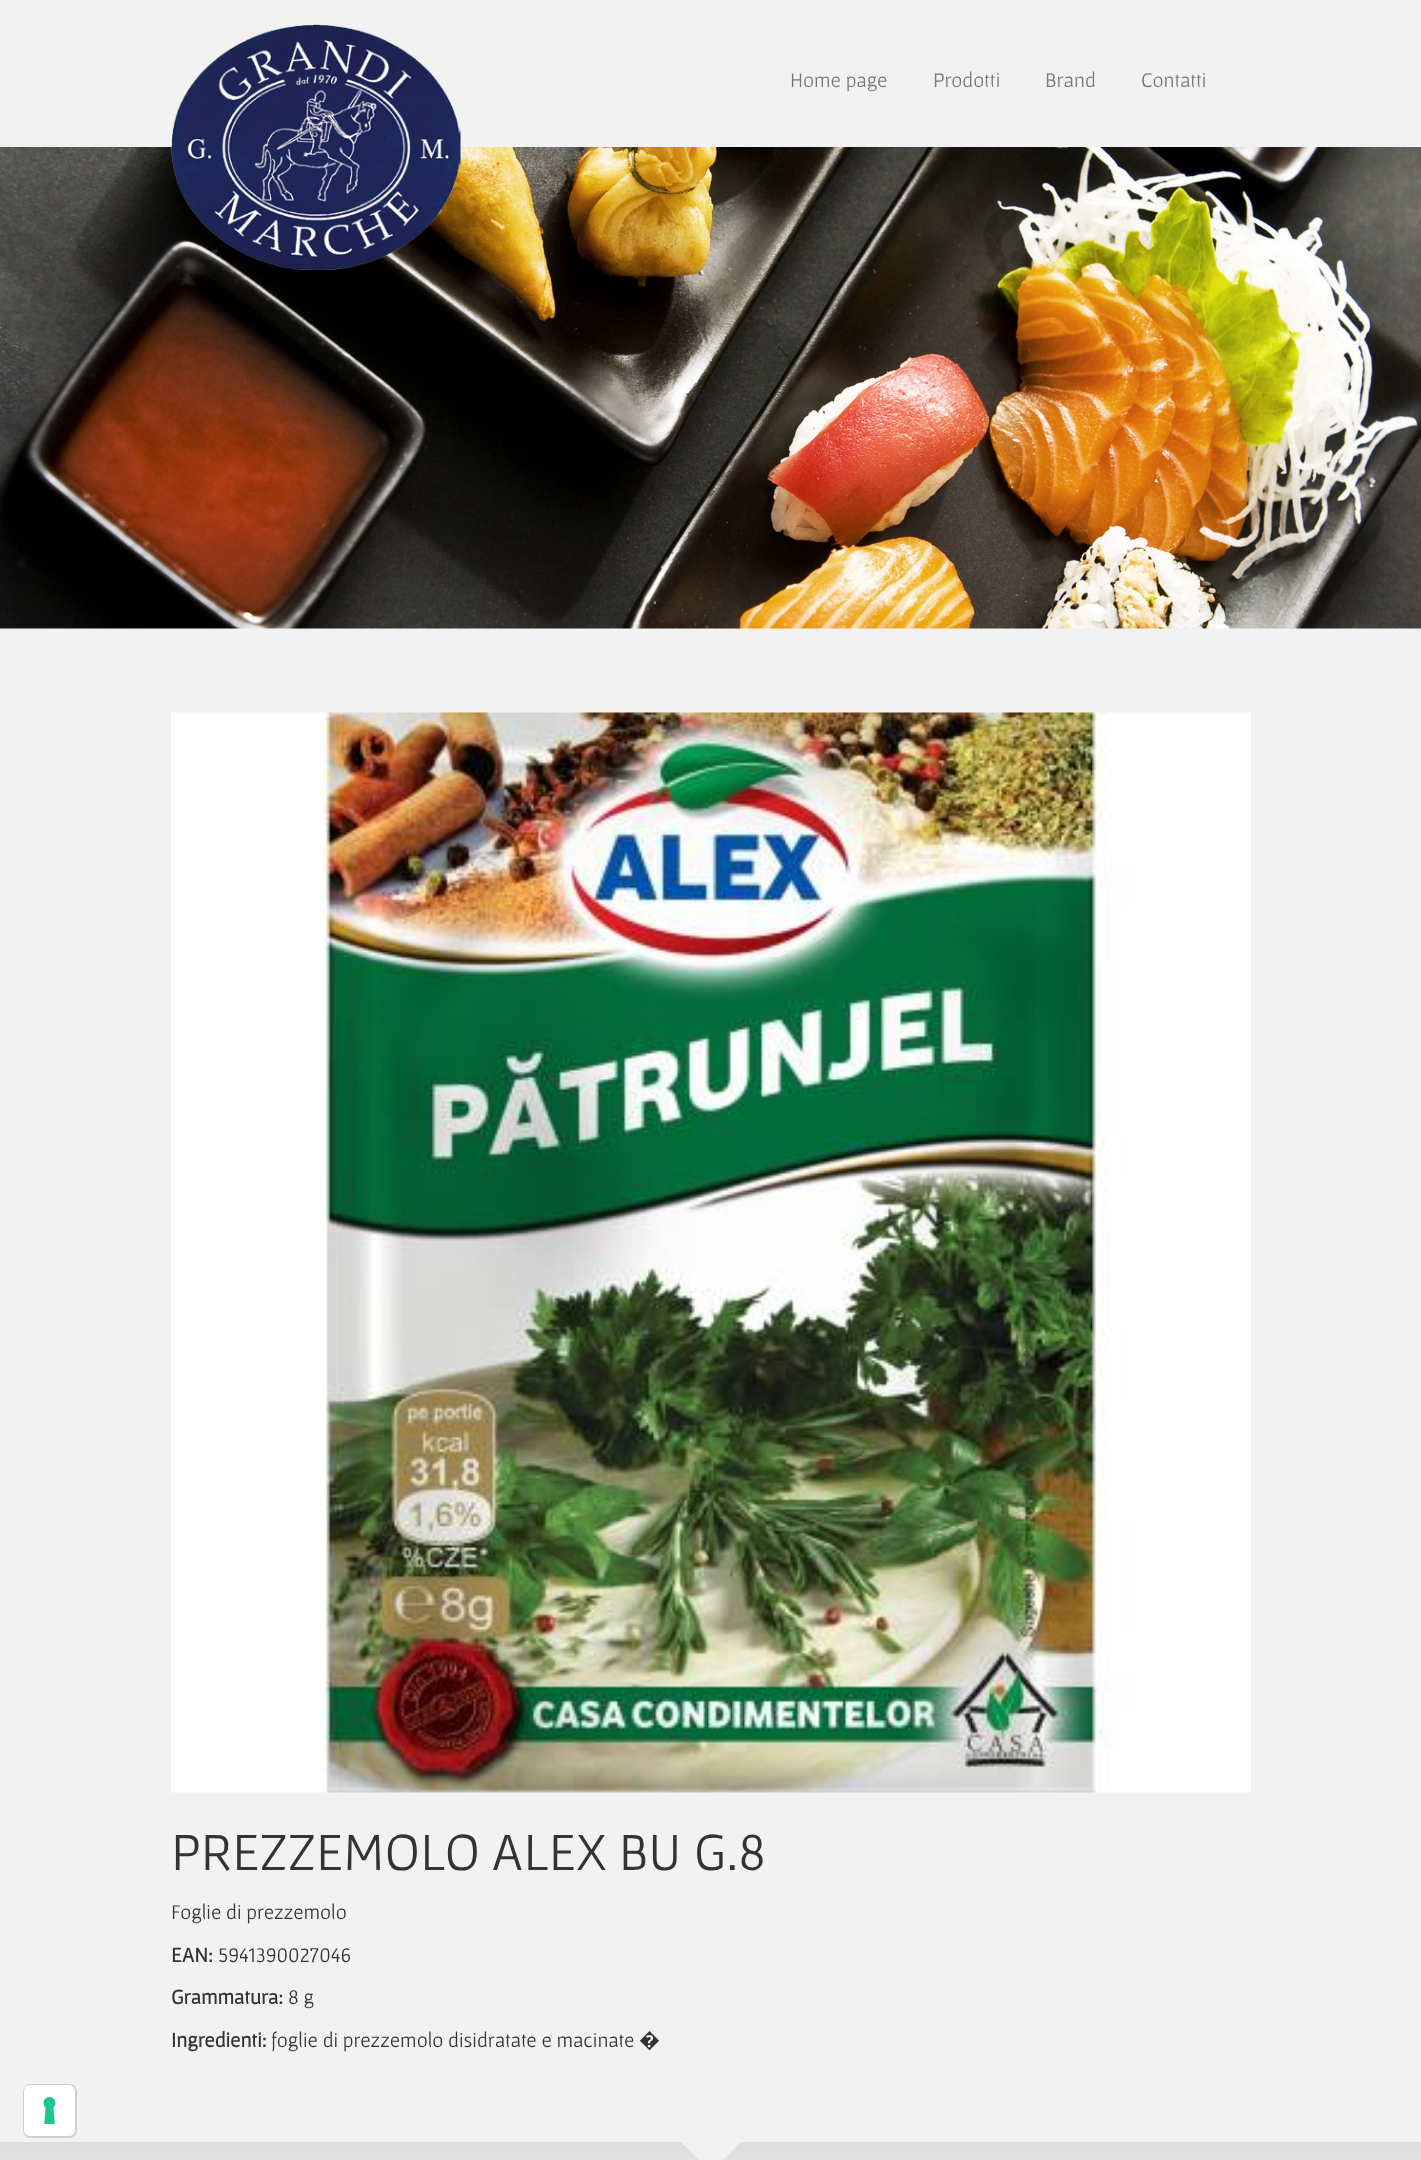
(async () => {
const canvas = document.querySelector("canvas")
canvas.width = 1421
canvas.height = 2160
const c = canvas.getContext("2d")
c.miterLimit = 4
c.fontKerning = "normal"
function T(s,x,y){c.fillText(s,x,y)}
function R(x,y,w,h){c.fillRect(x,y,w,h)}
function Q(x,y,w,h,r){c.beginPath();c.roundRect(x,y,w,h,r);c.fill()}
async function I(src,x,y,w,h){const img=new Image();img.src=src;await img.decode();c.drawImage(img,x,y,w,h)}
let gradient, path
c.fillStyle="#f2f2f2"
R(0,0,1421,2160)
await I("2.png",0,147,1421,482)
await I("1.png",171,24,290,246)
c.font="21px Gafata"
c.fillStyle="#777"
T("Home page",790,87)
T("Prodotti",933,87)
T("Brand",1045,87)
T("Contatti",1141,87)
await I("3.png",171,712,1080,1081)
c.font="54px Gafata"
c.fillStyle="#333"
T("PREZZEMOLO ALEX BU G.8",171,1870)
c.font="21px Gafata"
T("Foglie di prezzemolo",171,1919)
c.font="bold 21px Gafata"
T("EAN:",171,1962)
c.font="21px Gafata"
T("5941390027046",218,1962)
c.font="bold 21px Gafata"
T("Grammatura:",171,2004)
c.font="21px Gafata"
T("8 g",288,2004)
c.font="bold 21px Gafata"
T("Ingredienti:",171,2047)
c.font="21px Gafata"
T("foglie di prezzemolo disidratate e macinate",271,2047)
c.font="21px Noto Sans"
T("�",639,2047)
c.beginPath()
c.roundRect(24,2085,52,52,7)
c.strokeStyle="#cecece"
c.lineWidth=2
c.stroke()
c.fillStyle="#fff"
Q(24,2085,51,51,6)
await I("4.png",43,2097,13,27)
gradient = c.createLinearGradient(711,2142,711,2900)
gradient.addColorStop(0,"#ddd")
gradient.addColorStop(.17,"#f2f2f2")
gradient.addColorStop(.86,"#f2f2f2")
gradient.addColorStop(1,"#ddd")
c.fillStyle = gradient
R(0,2142,1421,18)
c.fillStyle="#f2f2f2"
path = new Path2D("M681 2142h60l-30 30z")
c.fill(path)
})()
